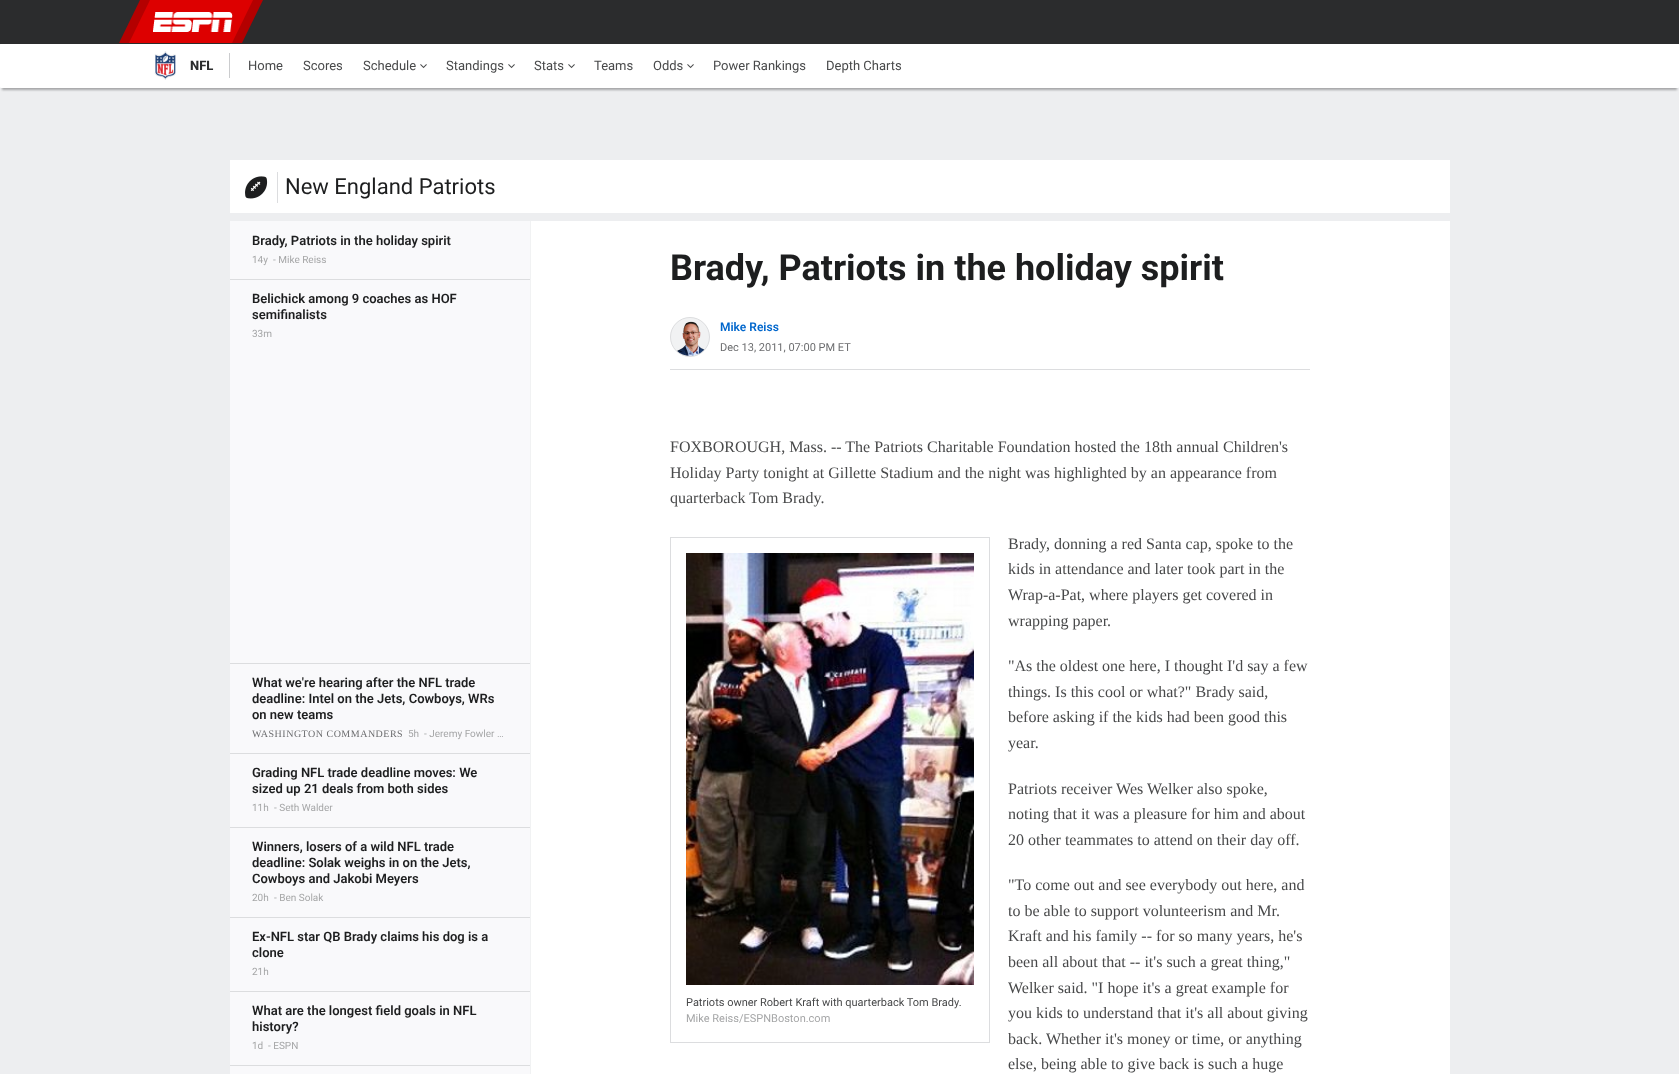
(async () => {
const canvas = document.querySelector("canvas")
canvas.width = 1679
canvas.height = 1074
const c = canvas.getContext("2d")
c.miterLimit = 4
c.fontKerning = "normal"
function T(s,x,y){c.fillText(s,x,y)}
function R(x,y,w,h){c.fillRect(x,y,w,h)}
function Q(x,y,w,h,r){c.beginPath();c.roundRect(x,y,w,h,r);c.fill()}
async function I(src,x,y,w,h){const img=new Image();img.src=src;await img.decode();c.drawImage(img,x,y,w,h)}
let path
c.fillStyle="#edeef0"
R(0,0,1679,1074)
c.fillStyle="#2b2c2d"
R(0,0,1679,44)
c.fillStyle="#b40000"
path = new Path2D("M140 0h123l-21 43h-123z")
c.fill(path)
c.fillStyle="#d00"
path = new Path2D("M150 0h103l-21 43h-103z")
c.fill(path)
await I("1.png",153,12,80,20)
c.fillStyle="#0000004d"
c.filter="blur(1px)"
c.beginPath()
c.rect(2,50,1675,40)
c.fill()
c.filter="none"
c.fillStyle="#fff"
Q(0,44,1679,44,1)
await I("2.png",154,51,22,29)
c.font="800 13px Roboto"
c.fillStyle="#2b2c2d"
T("NFL",190,70)
c.fillStyle="#cbccce"
R(229,53,1,25)
c.font="13px Roboto"
c.fillStyle="#48494a"
T("Home",248,70)
T("Scores",303,70)
T("Schedule",363,70)
await I("3.png",420,64,7,5)
T("Standings",446,70)
await I("3.png",508,64,7,5)
T("Stats",534,70)
await I("3.png",568,64,7,5)
T("Teams",594,70)
T("Odds",653,70)
await I("3.png",687,64,7,5)
T("Power Rankings",713,70)
T("Depth Charts",826,70)
c.fillStyle="#fff"
R(230,160,1220,53)
c.fillStyle="#dcdddf"
R(277,172,1,31)
await I("4.png",245,176,23,23)
c.font="22px Roboto"
c.fillStyle="#1d1e1f"
T("New England Patriots",285,194)
c.fillStyle="#f9f9fb"
R(230,221,300,853)
c.font="600 13px Roboto"
c.fillStyle="#1d1e1f"
T("Brady, Patriots in the holiday spirit",252,245)
c.font="10px Roboto"
c.fillStyle="#a5a6a7"
T("14y",252,263)
T("- Mike Reiss",273,263)
c.fillStyle="#dcdddf"
R(230,279,300,1)
c.font="600 13px Roboto"
c.fillStyle="#1d1e1f"
T("Belichick among 9 coaches as HOF",252,303)
T("semifinalists",252,319)
c.font="10px Roboto"
c.fillStyle="#a5a6a7"
T("33m",252,337)
c.fillStyle="#dcdddf"
R(230,663,300,1)
c.font="600 13px Roboto"
c.fillStyle="#1d1e1f"
T("What we're hearing after the NFL trade",252,687)
T("deadline: Intel on the Jets, Cowboys, WRs",252,703)
T("on new teams",252,719)
c.letterSpacing="0.5px"
c.font="10px Liberation Serif"
c.fillStyle="#6c6d6f"
T("WASHINGTON COMMANDERS",252,737)
c.letterSpacing="0px"
c.font="10px Roboto"
c.fillStyle="#a5a6a7"
T("5h",408,737)
T("- Jeremy Fowler …",424,737)
c.fillStyle="#dcdddf"
R(230,753,300,1)
c.font="600 13px Roboto"
c.fillStyle="#1d1e1f"
T("Grading NFL trade deadline moves: We",252,777)
T("sized up 21 deals from both sides",252,793)
c.font="10px Roboto"
c.fillStyle="#a5a6a7"
T("11h",252,811)
T("- Seth Walder",274,811)
c.fillStyle="#dcdddf"
R(230,827,300,1)
c.font="600 13px Roboto"
c.fillStyle="#1d1e1f"
T("Winners, losers of a wild NFL trade",252,851)
T("deadline: Solak weighs in on the Jets,",252,867)
T("Cowboys and Jakobi Meyers",252,883)
c.font="10px Roboto"
c.fillStyle="#a5a6a7"
T("20h",252,901)
T("- Ben Solak",274,901)
c.fillStyle="#dcdddf"
R(230,917,300,1)
c.font="600 13px Roboto"
c.fillStyle="#1d1e1f"
T("Ex-NFL star QB Brady claims his dog is a",252,941)
T("clone",252,957)
c.font="10px Roboto"
c.fillStyle="#a5a6a7"
T("21h",252,975)
c.fillStyle="#dcdddf"
R(230,991,300,1)
c.font="600 13px Roboto"
c.fillStyle="#1d1e1f"
T("What are the longest field goals in NFL",252,1015)
T("history?",252,1031)
c.font="10px Roboto"
c.fillStyle="#a5a6a7"
T("1d",252,1049)
T("- ESPN",268,1049)
c.fillStyle="#dcdddf"
R(230,1065,300,1)
c.fillStyle="#f1f2f3"
R(530,221,1,853)
c.fillStyle="#fff"
R(531,221,919,853)
c.font="bold 36px Roboto"
c.fillStyle="#1d1e1f"
T("Brady, Patriots in the holiday spirit",670,280)
c.fillStyle="#dcdddf"
R(670,369,640,1)
c.fillStyle="#f1f2f3"
c.beginPath()
c.arc(690,337,19.5,0,7)
c.fill()
c.strokeStyle="#dcdddf"
c.stroke()
await I("5.png",677,321,28,35)
c.font="600 12px Roboto"
c.fillStyle="#06c"
T("Mike Reiss",720,331)
c.font="11px Roboto"
c.fillStyle="#6c6d6f"
T("Dec 13, 2011, 07:00 PM ET",720,351)
c.font="16px Liberation Serif"
c.fillStyle="#48494a"
T("FOXBOROUGH, Mass. -- The Patriots Charitable Foundation hosted the 18th annual Children's",670,452)
T("Holiday Party tonight at Gillette Stadium and the night was highlighted by an appearance from",670,478)
T("quarterback Tom Brady.",670,503)
T("Brady, donning a red Santa cap, spoke to the",1008,549)
T("kids in attendance and later took part in the",1008,574)
T("Wrap-a-Pat, where players get covered in",1008,600)
T("wrapping paper.",1008,626)
T("\"As the oldest one here, I thought I'd say a few",1008,671)
T("things. Is this cool or what?\" Brady said,",1008,697)
T("before asking if the kids had been good this",1008,722)
T("year.",1008,748)
T("Patriots receiver Wes Welker also spoke,",1008,794)
T("noting that it was a pleasure for him and about",1008,819)
T("20 other teammates to attend on their day off.",1008,845)
c.strokeRect(670.5,537.5,319,505)
await I("6.png",686,553,288,432)
c.font="11px Roboto"
T("Patriots owner Robert Kraft with quarterback Tom Brady.",686,1006)
c.fillStyle="#a5a6a7"
T("Mike Reiss/ESPNBoston.com",686,1022)
c.font="16px Liberation Serif"
c.fillStyle="#48494a"
T("\"To come out and see everybody out here, and",1008,890)
T("to be able to support volunteerism and Mr.",1008,916)
T("Kraft and his family -- for so many years, he's",1008,941)
T("been all about that -- it's such a great thing,\"",1008,967)
T("Welker said. \"I hope it's a great example for",1008,993)
T("you kids to understand that it's all about giving",1008,1018)
T("back. Whether it's money or time, or anything",1008,1044)
T("else, being able to give back is such a huge",1008,1069)
})()
